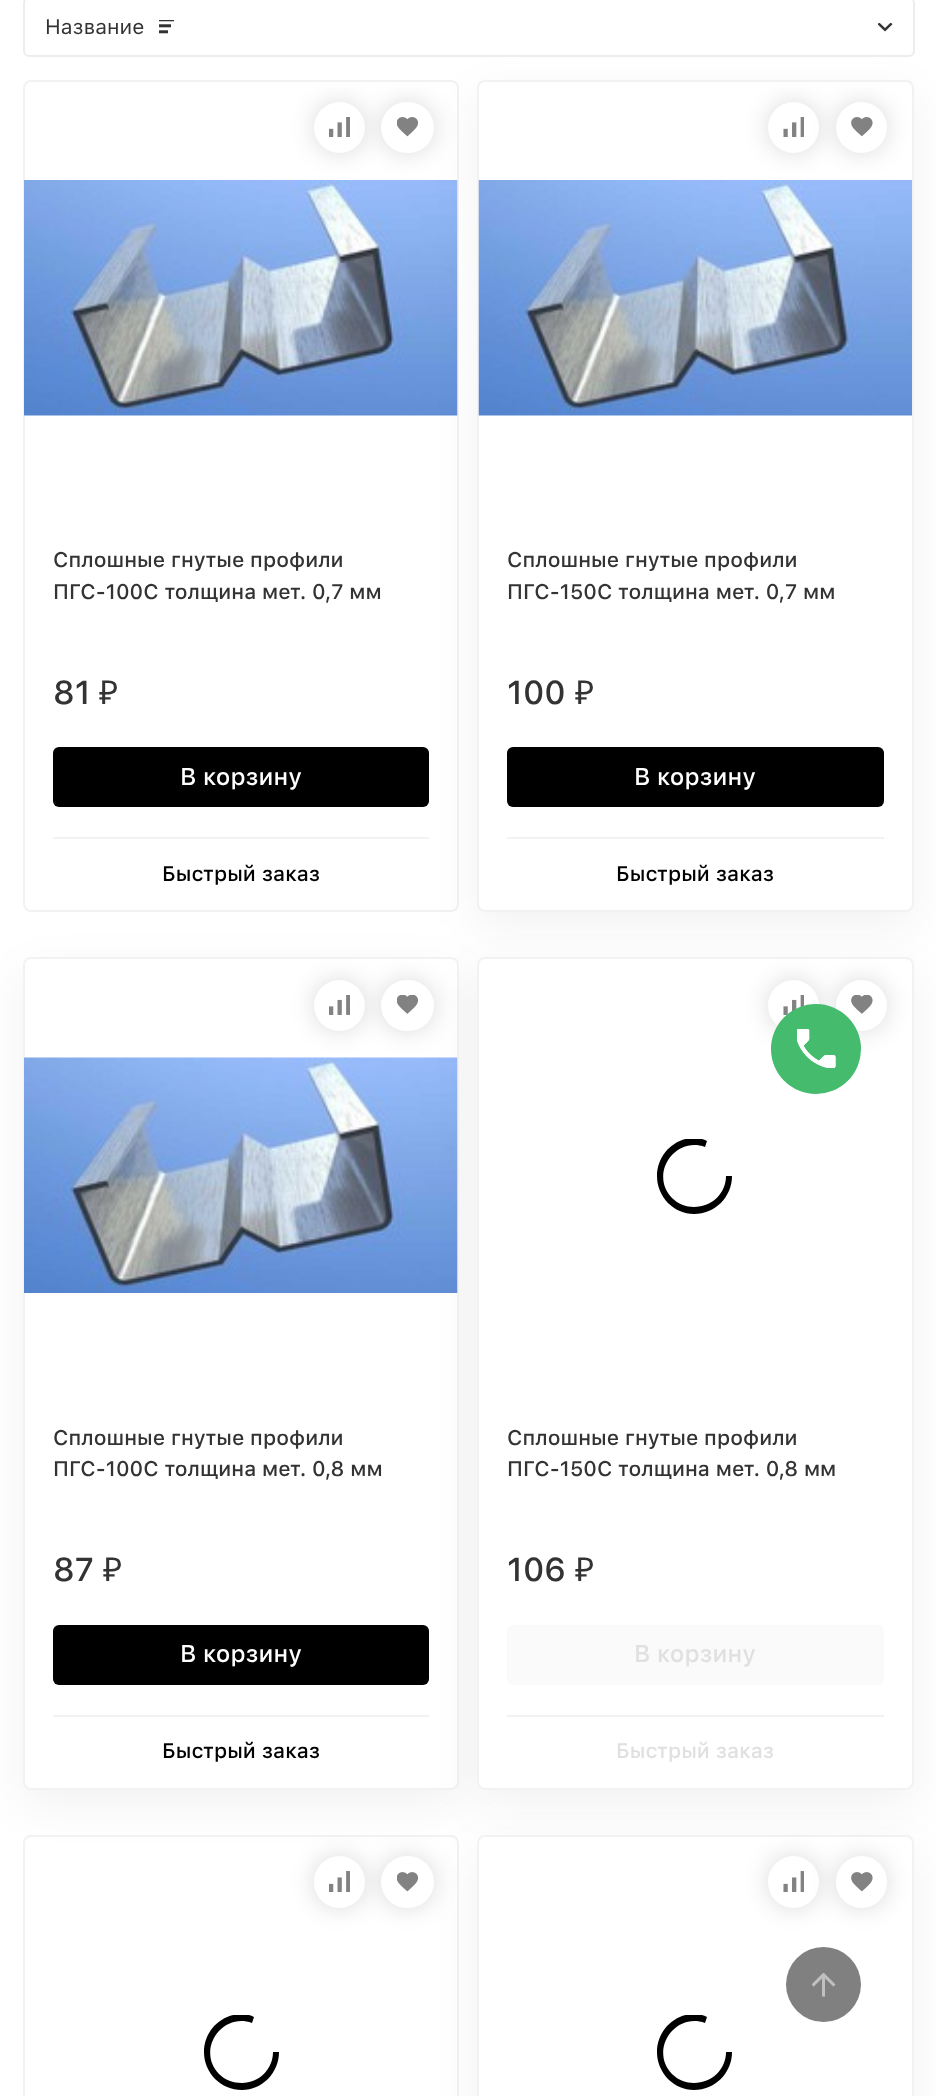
(async () => {
const canvas = document.querySelector("canvas")
canvas.width = 936
canvas.height = 2096
const c = canvas.getContext("2d")
c.miterLimit = 4
c.fontKerning = "normal"
function T(s,x,y){c.fillText(s,x,y)}
function R(x,y,w,h){c.fillRect(x,y,w,h)}
function Q(x,y,w,h,r){c.beginPath();c.roundRect(x,y,w,h,r);c.fill()}
async function I(src,x,y,w,h){const img=new Image();img.src=src;await img.decode();c.drawImage(img,x,y,w,h)}
let path
c.fillStyle="#fff"
R(0,0,936,2096)
c.beginPath()
c.roundRect(24,-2,890,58,5)
c.strokeStyle="#ededed"
c.lineWidth=2
c.stroke()
c.font="21px SF Pro Text"
c.fillStyle="#333"
T("Название",45,34)
await I("1.png",159,20,15,14)
await I("2.png",878,23,15,9)
c.beginPath()
c.roundRect(24,81,434,830,7)
c.strokeStyle="#f2f2f2"
c.stroke()
await I("5.png",24,180,434,236)
c.fillStyle="#00000026"
c.filter="blur(12.5px)"
c.beginPath()
c.roundRect(314,102,51,51,25.5)
c.fill()
c.filter="none"
c.fillStyle="#fff"
c.beginPath()
c.arc(339.5,127.5,25.5,0,7)
c.fill()
c.fillStyle="#00000026"
c.filter="blur(12.5px)"
c.beginPath()
c.roundRect(381,102,53,51,25.5)
c.fill()
c.filter="none"
await I("3.png",329,117,21,20)
c.fillStyle="#000"
Q(53,747,376,60,6)
c.fillStyle="#f2f2f2"
R(53,837,376,2)
c.fillStyle="#0000000d"
c.filter="blur(22.5px)"
c.beginPath()
c.roundRect(477,95,437,832,8)
c.fill()
c.filter="none"
c.fillStyle="#fff"
Q(381,102,53,51,25.5)
await I("4.png",397,117,21,20)
c.font="500 21px SF Pro Text"
c.fillStyle="#333"
T("Сплошные гнутые профили",53,567)
T("ПГС-100С толщина мет. 0,7 мм",53,599)
c.font="500 33px SF Pro Text"
T("81",53,704)
c.font="33px Noto Sans"
T("₽",99,704)
c.font="500 24px SF Pro Text"
c.fillStyle="#fff"
T("В корзину",180,785)
c.font="500 21px SF Pro Text"
c.fillStyle="#000"
T("Быстрый заказ",162,881)
c.fillStyle="#fff"
c.beginPath()
c.roundRect(478,81,435,830,7)
c.fill()
c.stroke()
await I("8.png",478,180,434,236)
c.fillStyle="#00000026"
c.filter="blur(12.5px)"
c.beginPath()
c.roundRect(768,102,51,51,25.5)
c.fill()
c.filter="none"
c.fillStyle="#fff"
c.beginPath()
c.arc(793.5,127.5,25.5,0,7)
c.fill()
c.fillStyle="#00000026"
c.filter="blur(12.5px)"
c.beginPath()
c.roundRect(836,102,51,51,25.5)
c.fill()
c.filter="none"
await I("6.png",783,117,21,20)
c.fillStyle="#fff"
c.beginPath()
c.arc(861.5,127.5,25.5,0,7)
c.fill()
await I("7.png",851,117,22,20)
c.fillStyle="#333"
T("Сплошные гнутые профили",507,567)
T("ПГС-150С толщина мет. 0,7 мм",507,599)
c.font="500 33px SF Pro Text"
T("100",507,704)
c.font="33px Noto Sans"
T("₽",575,704)
c.fillStyle="#000"
Q(507,747,377,60,6)
c.font="500 24px SF Pro Text"
c.fillStyle="#fff"
T("В корзину",634,785)
c.fillStyle="#f2f2f2"
R(507,837,377,2)
c.font="500 21px SF Pro Text"
c.fillStyle="#000"
T("Быстрый заказ",616,881)
c.fillStyle="#0000000d"
c.filter="blur(22.5px)"
c.beginPath()
c.roundRect(23,972,436,833,8)
c.fill()
c.filter="none"
c.fillStyle="#fff"
c.beginPath()
c.roundRect(24,958,434,831,7)
c.fill()
c.stroke()
await I("11.png",24,1057,434,236)
c.fillStyle="#00000026"
c.filter="blur(12.5px)"
c.beginPath()
c.roundRect(314,980,51,51,25.5)
c.fill()
c.filter="none"
c.fillStyle="#fff"
c.beginPath()
c.arc(339.5,1005.5,25.5,0,7)
c.fill()
c.fillStyle="#00000026"
c.filter="blur(12.5px)"
c.beginPath()
c.roundRect(381,980,53,51,25.5)
c.fill()
c.filter="none"
await I("9.png",329,995,21,20)
c.fillStyle="#000"
Q(53,1625,376,60,6)
c.fillStyle="#f2f2f2"
R(53,1715,376,2)
c.fillStyle="#0000000d"
c.filter="blur(22.5px)"
c.beginPath()
c.roundRect(477,972,437,833,8)
c.fill()
c.filter="none"
c.fillStyle="#fff"
Q(381,980,53,51,25.5)
await I("10.png",397,995,21,19)
c.fillStyle="#333"
T("Сплошные гнутые профили",53,1445)
T("ПГС-100С толщина мет. 0,8 мм",53,1476)
c.font="500 33px SF Pro Text"
T("87",53,1581)
c.font="33px Noto Sans"
T("₽",103,1581)
c.font="500 24px SF Pro Text"
c.fillStyle="#fff"
T("В корзину",180,1662)
c.font="500 21px SF Pro Text"
c.fillStyle="#000"
T("Быстрый заказ",162,1758)
c.fillStyle="#fff"
c.beginPath()
c.roundRect(478,958,435,831,7)
c.fill()
c.stroke()
c.fillStyle="#00000026"
c.filter="blur(12.5px)"
c.beginPath()
c.roundRect(768,980,51,51,25.5)
c.fill()
c.filter="none"
c.fillStyle="#fff"
c.beginPath()
c.arc(793.5,1005.5,25.5,0,7)
c.fill()
c.fillStyle="#00000026"
c.filter="blur(12.5px)"
c.beginPath()
c.roundRect(836,980,51,51,25.5)
c.fill()
c.filter="none"
await I("12.png",783,995,21,20)
c.fillStyle="#fff"
c.beginPath()
c.arc(861.5,1005.5,25.5,0,7)
c.fill()
await I("13.png",851,995,22,19)
c.save()
c.beginPath()
c.rect(657,1139,75,75)
c.clip()
c.fillStyle="#000"
path = new Path2D("M694 1207c-8 0-16-3-22-9c-23-24 3-62 33-51l2-6c-4-2-8-3-13-3c-20 0-37 17-37 38c0 21 17 38 37 38c21 0 38-17 38-38h-6c0 17-14 31-32 31z")
c.fill(path)
c.restore()
c.fillStyle="#333"
T("Сплошные гнутые профили",507,1445)
T("ПГС-150С толщина мет. 0,8 мм",507,1476)
c.font="500 33px SF Pro Text"
T("106",507,1581)
c.font="33px Noto Sans"
T("₽",575,1581)
c.fillStyle="#fafafa"
Q(507,1625,377,60,6)
c.font="500 24px SF Pro Text"
c.fillStyle="#e0e0e0"
T("В корзину",634,1662)
c.fillStyle="#f2f2f2"
R(507,1715,377,2)
c.font="500 21px SF Pro Text"
c.fillStyle="#e0e0e0"
T("Быстрый заказ",616,1758)
c.beginPath()
c.roundRect(24,1836,434,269,7)
c.stroke()
c.fillStyle="#00000026"
c.filter="blur(12.5px)"
c.beginPath()
c.roundRect(314,1856,51,52,25.5)
c.fill()
c.filter="none"
c.fillStyle="#fff"
Q(314,1856,51,52,25.5)
c.fillStyle="#00000026"
c.filter="blur(12.5px)"
c.beginPath()
c.roundRect(381,1856,53,52,26)
c.fill()
c.filter="none"
await I("14.png",329,1871,21,21)
c.fillStyle="#0000000d"
c.filter="blur(22.5px)"
c.beginPath()
c.roundRect(477,1850,437,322,8)
c.fill()
c.filter="none"
c.fillStyle="#fff"
Q(381,1856,53,52,26)
await I("15.png",397,1872,21,20)
c.save()
c.beginPath()
c.rect(204,2015,75,75)
c.clip()
c.fillStyle="#000"
path = new Path2D("M242 2083c-9 0-17-3-23-9c-23-24 3-62 33-51l2-6c-4-2-8-3-12-3c-21 0-38 17-38 38c0 21 17 38 38 38c20 0 37-17 37-38h-6c0 17-14 31-31 31z")
c.fill(path)
c.restore()
c.beginPath()
c.roundRect(478,1836,435,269,7)
c.fill()
c.stroke()
c.fillStyle="#00000026"
c.filter="blur(12.5px)"
c.beginPath()
c.roundRect(768,1856,51,52,25.5)
c.fill()
c.filter="none"
c.fillStyle="#fff"
Q(768,1856,51,52,25.5)
c.fillStyle="#00000026"
c.filter="blur(12.5px)"
c.beginPath()
c.roundRect(836,1856,51,52,25.5)
c.fill()
c.filter="none"
await I("16.png",783,1871,21,21)
c.fillStyle="#fff"
Q(836,1856,51,52,25.5)
await I("17.png",851,1872,22,20)
c.save()
c.beginPath()
c.rect(657,2015,75,75)
c.clip()
c.fillStyle="#000"
path = new Path2D("M694 2083c-8 0-16-3-22-9c-23-24 3-62 33-51l2-6c-4-2-8-3-13-3c-20 0-37 17-37 38c0 21 17 38 37 38c21 0 38-17 38-38h-6c0 17-14 31-32 31z")
c.fill(path)
c.restore()
c.fillStyle="#44bb6e"
c.beginPath()
c.arc(816,1049,45,0,7)
c.fill()
c.fillStyle="#44bb6e1a"
c.beginPath()
c.arc(816,1049,45,0,7)
c.fill()
await I("18.png",797,1029,39,39)
await I("19.png",797,1029,39,39)
c.fillStyle="#808080"
c.beginPath()
c.arc(823.5,1984.5,37.5,0,7)
c.fill()
await I("20.png",812,1973,24,24)
})()
